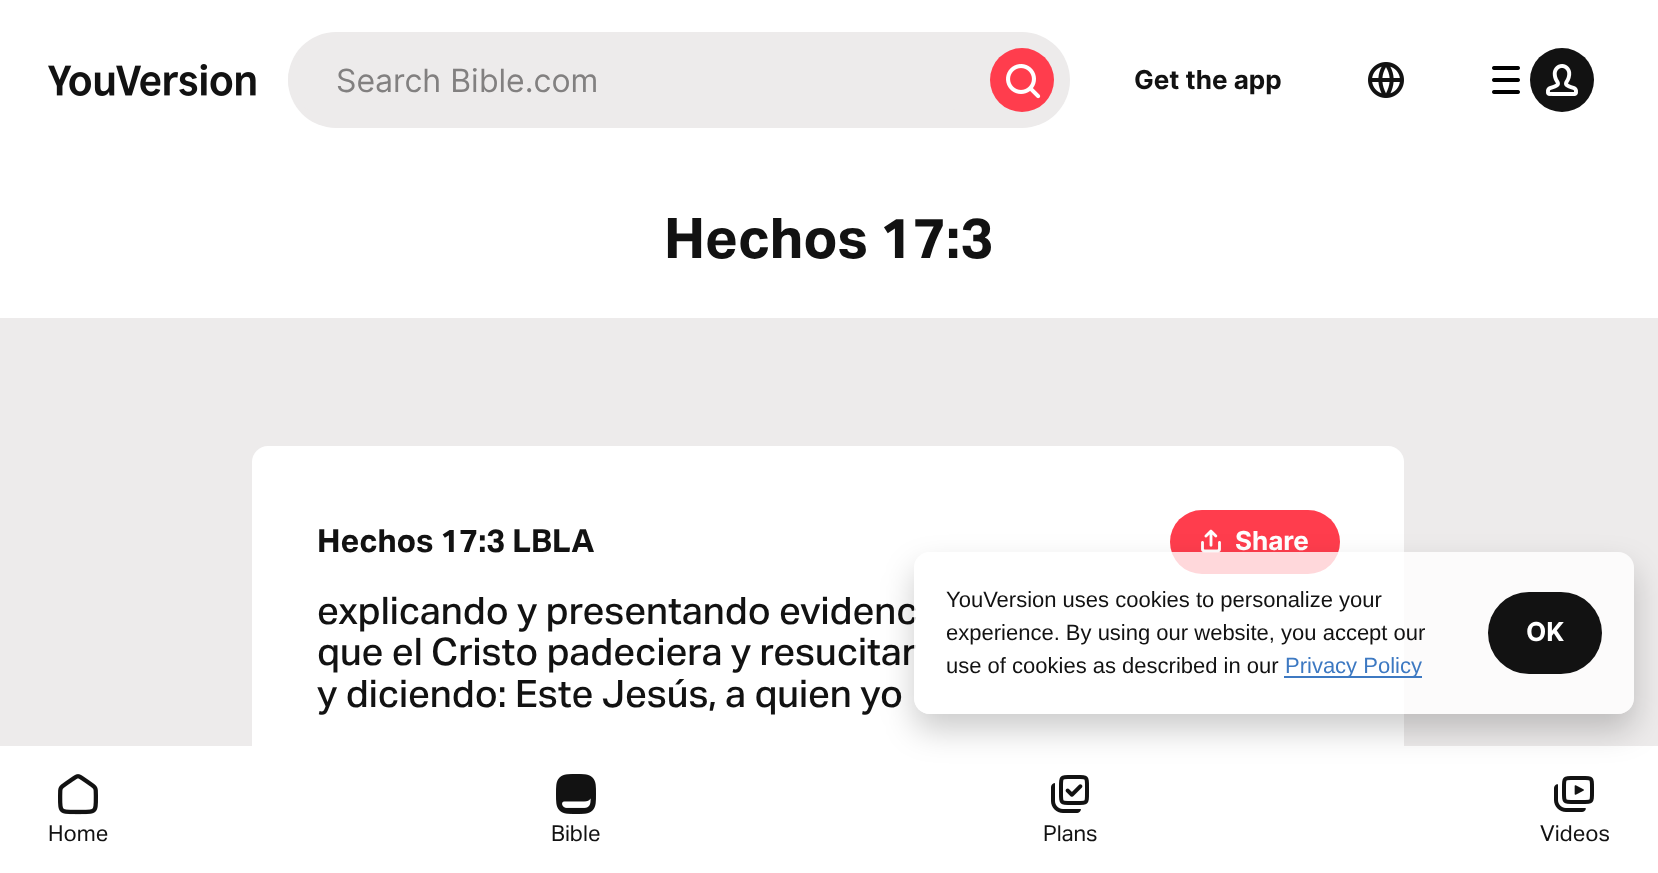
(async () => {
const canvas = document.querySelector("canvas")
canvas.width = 1658
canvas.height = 873
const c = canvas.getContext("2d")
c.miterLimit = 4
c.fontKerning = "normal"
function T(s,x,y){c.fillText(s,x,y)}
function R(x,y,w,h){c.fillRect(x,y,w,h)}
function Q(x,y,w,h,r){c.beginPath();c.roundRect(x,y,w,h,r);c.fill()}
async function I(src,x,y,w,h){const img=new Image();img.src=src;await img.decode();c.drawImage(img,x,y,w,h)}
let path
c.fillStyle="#fff"
R(0,0,1658,873)
await I("1.png",48,64,208,32)
c.fillStyle="#edebeb"
Q(288,32,782,96,48)
Q(288,48,686,64,32)
c.font="32px Inter"
c.fillStyle="#828080"
T("Search Bible.com",336,92)
c.fillStyle="#ff3d4d"
c.beginPath()
c.arc(1022,80,32,0,7)
c.fill()
await I("2.png",1006,64,35,35)
c.font="bold 26px Inter"
c.fillStyle="#121212"
T("Get the app",1134,89)
await I("3.png",1368,62,36,36)
await I("4.png",1492,66,28,28)
c.beginPath()
c.arc(1562,80,32,0,7)
c.fill()
await I("5.png",1546,64,32,32)
c.font="bold 56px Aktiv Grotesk"
T("Hechos 17:3",664,258)
c.fillStyle="#edebeb"
R(0,318,1658,428)
c.fillStyle="#fff"
Q(252,446,1152,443,16)
c.font="bold 32px Aktiv Grotesk"
c.fillStyle="#121212"
T("Hechos 17:3 LBLA",317,552)
c.fillStyle="#ff3d4d"
Q(1170,510,170,64,32)
await I("6.png",1201,529,20,24)
c.font="bold 26px Inter"
c.fillStyle="#fff"
T("Share",1235,550)
c.font="500 38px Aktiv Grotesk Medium"
c.fillStyle="#121212"
T("explicando y presentando evidenc",317,624)
T("que el Cristo padeciera y resucitar",317,665)
T("y diciendo: Este Jesús, a quien yo",317,707)
await I("9.png",1051,775,38,38)
await I("10.png",1554,776,40,36)
c.save()
path = new Path2D("M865 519h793v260h-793zm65 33h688c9 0 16 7 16 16v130c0 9-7 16-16 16h-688c-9 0-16-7-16-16v-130c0-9 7-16 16-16z")
c.clip(path,"evenodd")
c.fillStyle="#00000033"
c.filter="blur(16px)"
c.beginPath()
c.roundRect(914,568,720,162,16)
c.fill()
c.filter="none"
c.restore()
c.fillStyle="#ffffffcc"
Q(914,552,720,162,16)
c.font="22px Liberation Sans"
c.fillStyle="#121212"
T("YouVersion uses cookies to personalize your",946,607)
T("experience. By using our website, you accept our",946,640)
T("use of cookies as described in our",946,673)
c.fillStyle="#3d79c2"
R(1284,676,138,2)
T("Privacy Policy",1285,673)
c.fillStyle="#121212"
Q(1488,592,114,82,41)
c.font="bold 26px Inter"
c.fillStyle="#fff"
T("OK",1526,641)
await I("7.png",58,774,40,41)
c.font="22px Aktiv Grotesk"
c.fillStyle="#121212"
T("Home",48,841)
await I("8.png",556,774,40,40)
T("Bible",551,841)
T("Plans",1043,841)
T("Videos",1540,841)
})()
